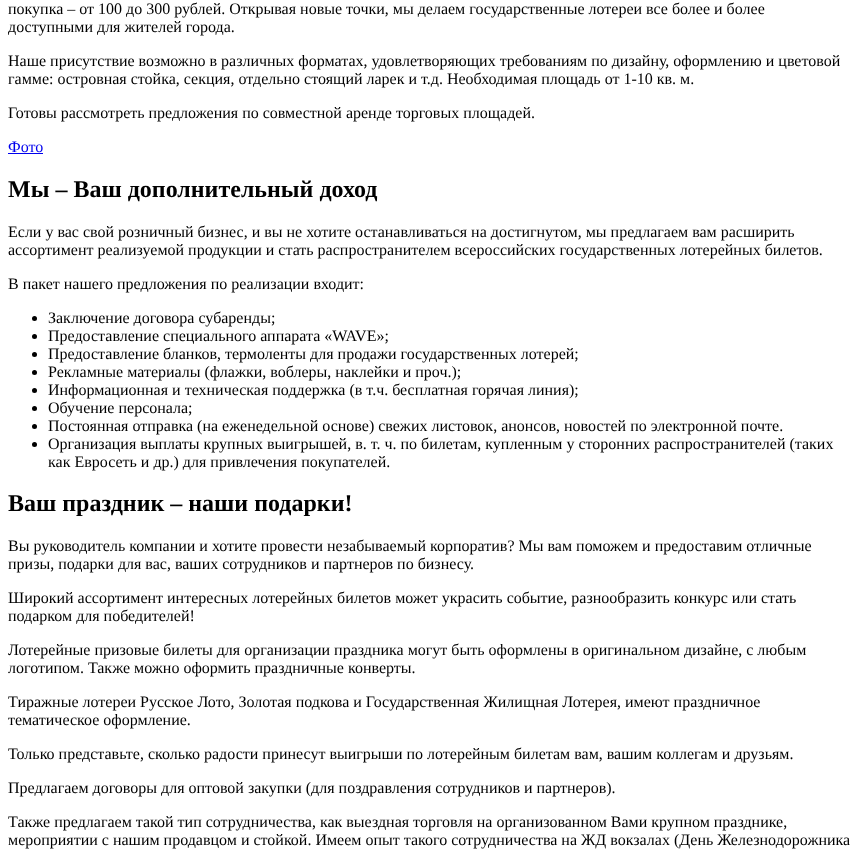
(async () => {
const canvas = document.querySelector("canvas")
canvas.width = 859
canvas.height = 852
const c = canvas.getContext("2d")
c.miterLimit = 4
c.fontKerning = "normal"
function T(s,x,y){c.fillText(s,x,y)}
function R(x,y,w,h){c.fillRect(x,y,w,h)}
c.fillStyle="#fff"
R(0,0,859,852)
c.font="16px Liberation Serif"
c.fillStyle="#000"
T("покупка – от 100 до 300 рублей. Открывая новые точки, мы делаем государственные лотереи все более и более",8,14)
T("доступными для жителей города.",8,32)
T("Наше присутствие возможно в различных форматах, удовлетворяющих требованиям по дизайну, оформлению и цветовой",8,66)
T("гамме: островная стойка, секция, отдельно стоящий ларек и т.д. Необходимая площадь от 1-10 кв. м.",8,84)
T("Готовы рассмотреть предложения по совместной аренде торговых площадей.",8,118)
c.fillStyle="#00e"
T("Фото",8,152)
R(8,153,35,1)
c.font="bold 24px Liberation Serif"
c.fillStyle="#000"
T("Мы – Ваш дополнительный доход",8,197)
c.font="16px Liberation Serif"
T("Если у вас свой розничный бизнес, и вы не хотите останавливаться на достигнутом, мы предлагаем вам расширить",8,237)
T("ассортимент реализуемой продукции и стать распространителем всероссийских государственных лотерейных билетов.",8,255)
T("В пакет нашего предложения по реализации входит:",8,289)
c.beginPath()
c.arc(34.5,318.5,2.5,0,7)
c.fill()
T("Заключение договора субаренды;",48,323)
c.beginPath()
c.arc(34.5,336.5,2.5,0,7)
c.fill()
T("Предоставление специального аппарата «WAVE»;",48,341)
c.beginPath()
c.arc(34.5,354.5,2.5,0,7)
c.fill()
T("Предоставление бланков, термоленты для продажи государственных лотерей;",48,359)
c.beginPath()
c.arc(34.5,372.5,2.5,0,7)
c.fill()
T("Рекламные материалы (флажки, воблеры, наклейки и проч.);",48,377)
c.beginPath()
c.arc(34.5,390.5,2.5,0,7)
c.fill()
T("Информационная и техническая поддержка (в т.ч. бесплатная горячая линия);",48,395)
c.beginPath()
c.arc(34.5,408.5,2.5,0,7)
c.fill()
T("Обучение персонала;",48,413)
c.beginPath()
c.arc(34.5,426.5,2.5,0,7)
c.fill()
T("Постоянная отправка (на еженедельной основе) свежих листовок, анонсов, новостей по электронной почте.",48,431)
c.beginPath()
c.arc(34.5,444.5,2.5,0,7)
c.fill()
T("Организация выплаты крупных выигрышей, в. т. ч. по билетам, купленным у сторонних распространителей (таких",48,449)
T("как Евросеть и др.) для привлечения покупателей.",48,467)
c.font="bold 24px Liberation Serif"
T("Ваш праздник – наши подарки!",8,511)
c.font="16px Liberation Serif"
T("Вы руководитель компании и хотите провести незабываемый корпоратив? Мы вам поможем и предоставим отличные",8,551)
T("призы, подарки для вас, ваших сотрудников и партнеров по бизнесу.",8,569)
T("Широкий ассортимент интересных лотерейных билетов может украсить событие, разнообразить конкурс или стать",8,603)
T("подарком для победителей!",8,621)
T("Лотерейные призовые билеты для организации праздника могут быть оформлены в оригинальном дизайне, с любым",8,655)
T("логотипом. Также можно оформить праздничные конверты.",8,673)
T("Тиражные лотереи Русское Лото, Золотая подкова и Государственная Жилищная Лотерея, имеют праздничное",8,707)
T("тематическое оформление.",8,725)
T("Только представьте, сколько радости принесут выигрыши по лотерейным билетам вам, вашим коллегам и друзьям.",8,759)
T("Предлагаем договоры для оптовой закупки (для поздравления сотрудников и партнеров).",8,793)
T("Также предлагаем такой тип сотрудничества, как выездная торговля на организованном Вами крупном празднике,",8,827)
T("мероприятии с нашим продавцом и стойкой. Имеем опыт такого сотрудничества на ЖД вокзалах (День Железнодорожника",8,845)
})()
